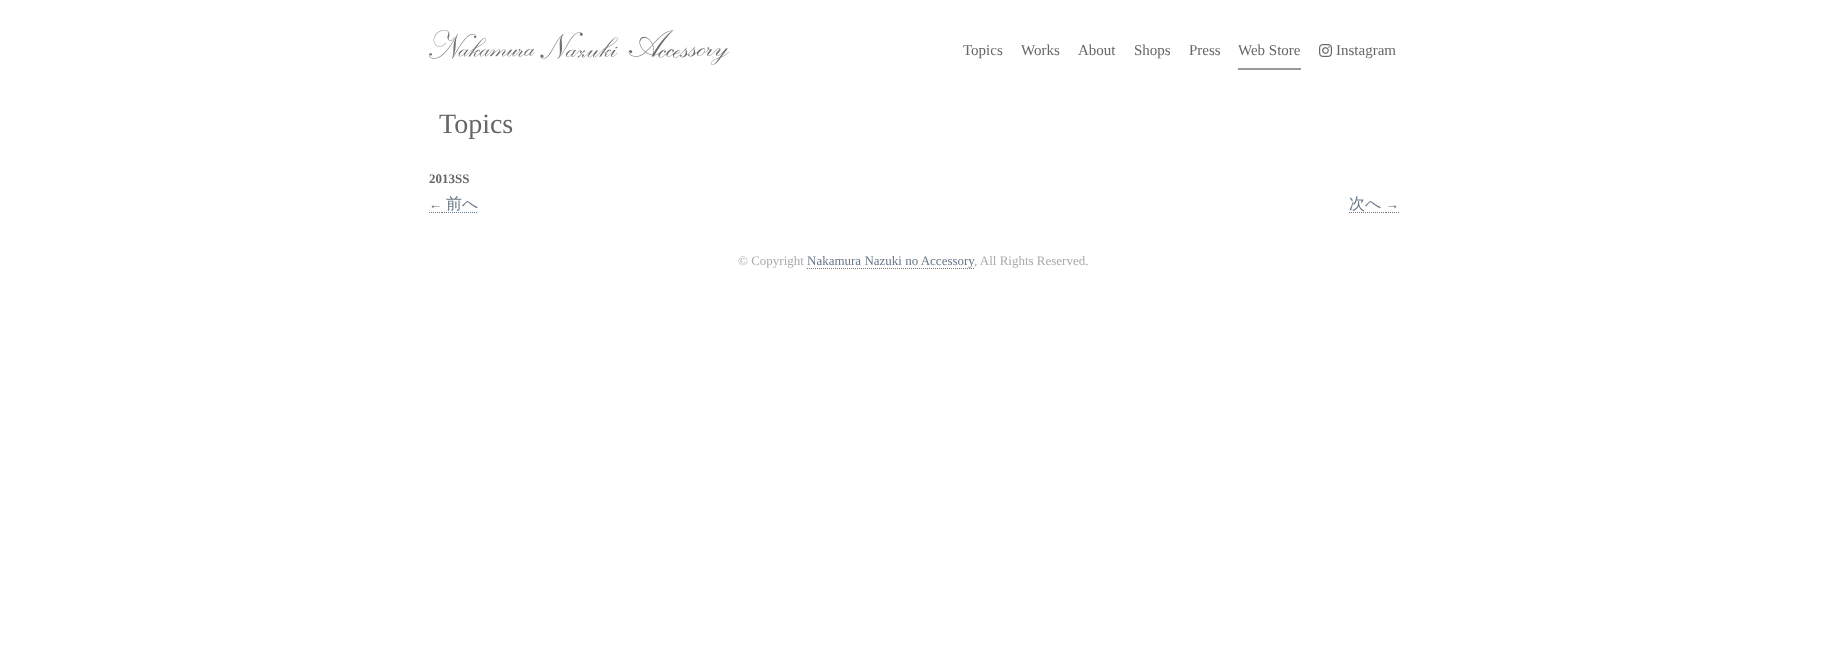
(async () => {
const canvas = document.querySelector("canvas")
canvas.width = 1827
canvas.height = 661
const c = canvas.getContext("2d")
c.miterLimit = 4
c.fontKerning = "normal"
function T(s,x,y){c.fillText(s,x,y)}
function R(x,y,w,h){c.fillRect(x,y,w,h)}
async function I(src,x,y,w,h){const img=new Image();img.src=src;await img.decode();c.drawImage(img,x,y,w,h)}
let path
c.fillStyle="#fff"
R(0,0,1827,661)
await I("1.png",429,30,300,35)
c.font="15px Liberation Serif"
c.fillStyle="#666"
T("Topics",963,55)
T("Works",1021,55)
T("About",1078,55)
T("Shops",1134,55)
T("Press",1189,55)
c.fillStyle="#999"
R(1238,68,63,2)
c.fillStyle="#666"
T("Web Store",1238,55)
await I("2.png",1319,44,13,13)
T("Instagram",1336,55)
c.font="28px Liberation Serif"
T("Topics",439,133)
c.font="bold 13px Liberation Serif"
T("2013SS",429,183)
c.font="13px Liberation Serif"
T("←",429,209)
path = new Path2D("M429 212.5h13m0 0h36")
c.strokeStyle="#687787"
c.setLineDash([1,1])
c.stroke(path)
c.font="500 16px WenQuanYi Zen Hei"
c.fillStyle="#687787"
T("前へ",446,209)
T("次へ",1349,209)
c.font="13px Liberation Serif"
c.fillStyle="#666"
T("→",1386,209)
path = new Path2D("M1349 212.5h37m0 0h13")
c.stroke(path)
c.fillStyle="#aaa"
T("© Copyright",738,265)
c.fillStyle="#687787"
T("Nakamura Nazuki no Accessory",807,265)
path = new Path2D("M807 268.5h167")
c.stroke(path)
c.fillStyle="#aaa"
T(", All Rights Reserved.",974,265)
})()
